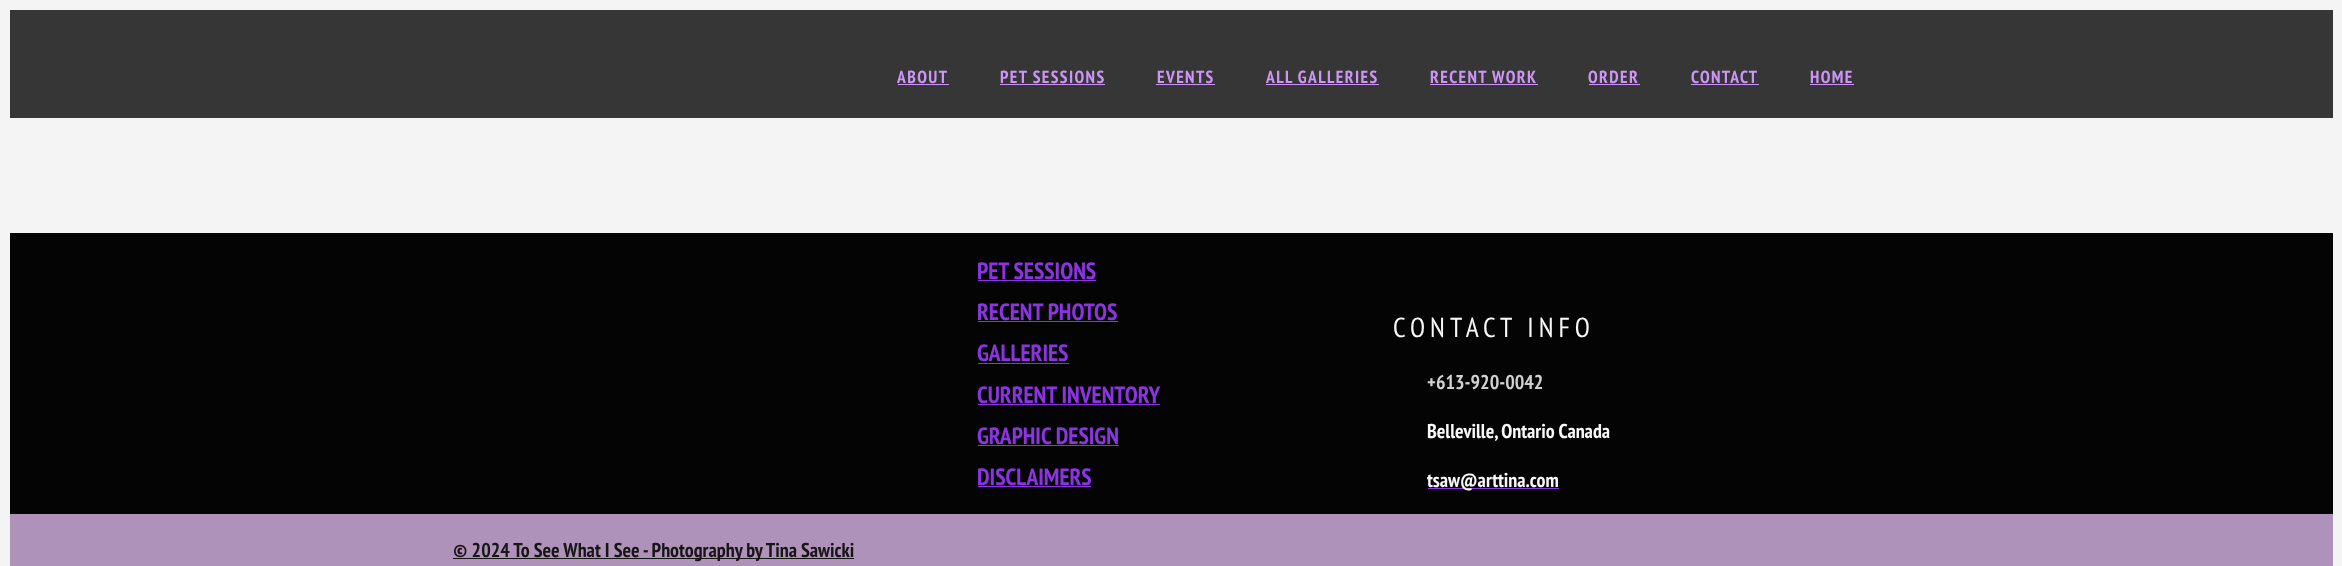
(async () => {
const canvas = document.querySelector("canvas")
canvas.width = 2342
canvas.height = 566
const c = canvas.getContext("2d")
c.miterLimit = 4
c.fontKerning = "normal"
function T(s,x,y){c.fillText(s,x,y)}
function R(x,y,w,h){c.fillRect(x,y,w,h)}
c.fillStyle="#f4f4f4"
R(0,0,2342,566)
c.fillStyle="#363636"
R(10,10,2323,108)
c.letterSpacing="1.4px"
c.font="bold 17.5px PT Sans Narrow"
c.fillStyle="#cd95f5"
T("ABOUT",897,83)
R(898,84,51,1)
T("PET SESSIONS",1000,83)
R(1000,84,105,1)
T("EVENTS",1157,83)
R(1156,84,59,1)
T("ALL GALLERIES",1266,83)
R(1266,84,113,1)
T("RECENT WORK",1430,83)
R(1430,84,108,1)
T("ORDER",1588,83)
R(1589,84,51,1)
T("CONTACT",1691,83)
R(1691,84,68,1)
T("HOME",1810,83)
R(1810,84,44,1)
c.fillStyle="#040404"
R(10,233,2323,281)
c.letterSpacing="0px"
c.font="bold 23.5px PT Sans Narrow"
c.fillStyle="#8b34e2"
T("PET SESSIONS",977,279)
R(978,280,118,1)
T("RECENT PHOTOS",977,320)
R(978,321,140,1)
T("GALLERIES",977,361)
R(978,363,91,1)
T("CURRENT INVENTORY",977,403)
R(978,404,182,1)
T("GRAPHIC DESIGN",977,444)
R(978,445,141,1)
T("DISCLAIMERS",977,485)
R(978,486,113,1)
c.letterSpacing="5px"
c.font="27.5px PT Sans Narrow"
c.fillStyle="#f9f8f8"
T("CONTACT INFO",1393,337)
c.letterSpacing="0px"
c.font="bold 20px PT Sans Narrow"
c.fillStyle="#cfd1d2"
T("+613-920-0042",1427,389)
c.fillStyle="#f9f8f8"
T("Belleville, Ontario Canada",1427,438)
c.fillStyle="#8b34e2"
R(1428,488,131,1)
c.fillStyle="#f9f8f8"
T("tsaw@arttina.com",1427,487)
c.fillStyle="#af92ba"
R(10,514,2323,52)
c.fillStyle="#171515"
R(453,558,401,1)
T("© 2024 To See What I See - Photography by Tina Sawicki",453,557)
})()
